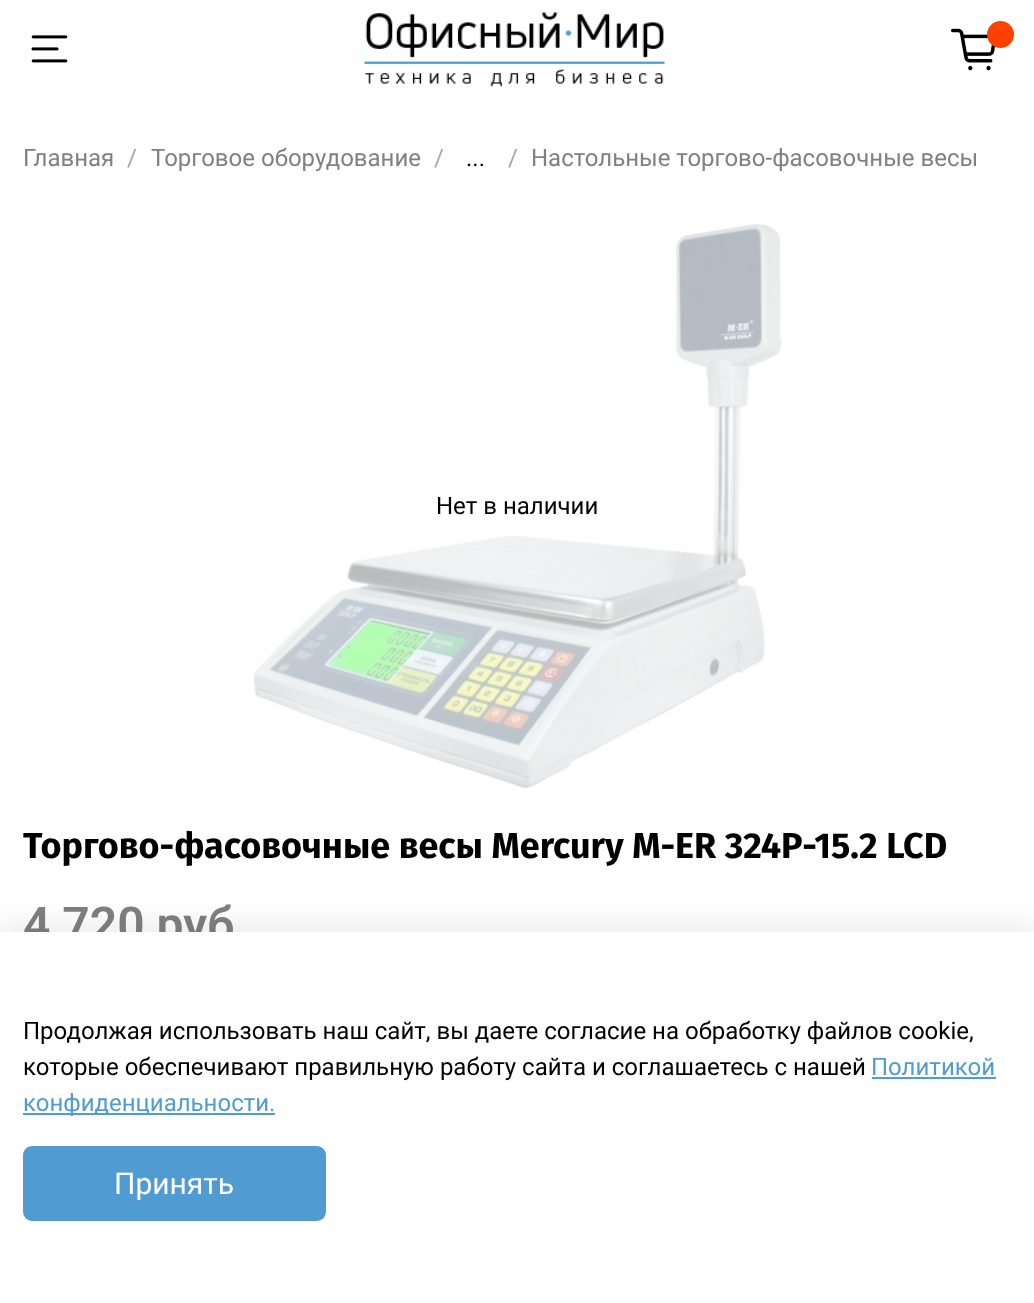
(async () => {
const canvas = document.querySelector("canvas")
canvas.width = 1034
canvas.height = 1303
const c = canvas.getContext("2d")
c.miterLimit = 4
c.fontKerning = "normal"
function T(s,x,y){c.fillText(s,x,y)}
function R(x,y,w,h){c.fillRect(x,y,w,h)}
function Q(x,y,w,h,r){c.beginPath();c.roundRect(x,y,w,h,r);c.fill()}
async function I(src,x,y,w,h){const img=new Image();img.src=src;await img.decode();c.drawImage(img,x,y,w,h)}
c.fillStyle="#fff"
R(0,0,1034,1303)
await I("1.png",31,35,37,28)
await I("2.png",364,12,301,75)
await I("3.png",951,28,44,43)
c.fillStyle="#ff4100"
c.beginPath()
c.arc(1000.5,34.5,13.5,0,7)
c.fill()
c.font="24px Roboto"
c.fillStyle="#808080"
T("Главная",23,166)
c.fillStyle="#a6a6a6"
T("/",127,166)
c.fillStyle="#808080"
T("Торговое оборудование",151,166)
c.fillStyle="#a6a6a6"
T("/",434,166)
c.fillStyle="#000"
T("...",466,166)
c.fillStyle="#a6a6a6"
T("/",508,166)
c.fillStyle="#808080"
T("Настольные торгово-фасовочные весы",531,166)
await I("4.png",253,224,529,564)
c.fillStyle="#000"
T("Нет в наличии",436,514)
c.font="bold 36px Fira Sans"
T("Торгово-фасовочные весы Mercury M-ER 324P-15.2 LCD",23,858)
c.font="600 48px Roboto"
c.fillStyle="#808080"
T("4 720 руб",23,941)
c.fillStyle="#00000017"
c.filter="blur(17px)"
c.beginPath()
c.rect(-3,927,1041,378)
c.fill()
c.filter="none"
c.fillStyle="#fff"
R(0,932,1034,371)
c.font="24px Roboto"
c.fillStyle="#000"
T("Продолжая использовать наш сайт, вы даете согласие на обработку файлов cookie,",23,1039)
T("которые обеспечивают правильную работу сайта и соглашаетесь с нашей",23,1075)
c.fillStyle="#509cd2"
T("Политикой",871,1075)
R(872,1077,124,2)
R(23,1113,252,2)
T("конфиденциальности.",23,1111)
Q(23,1146,303,75,9)
c.font="30px Roboto"
c.fillStyle="#fff"
T("Принять",114,1194)
})()
